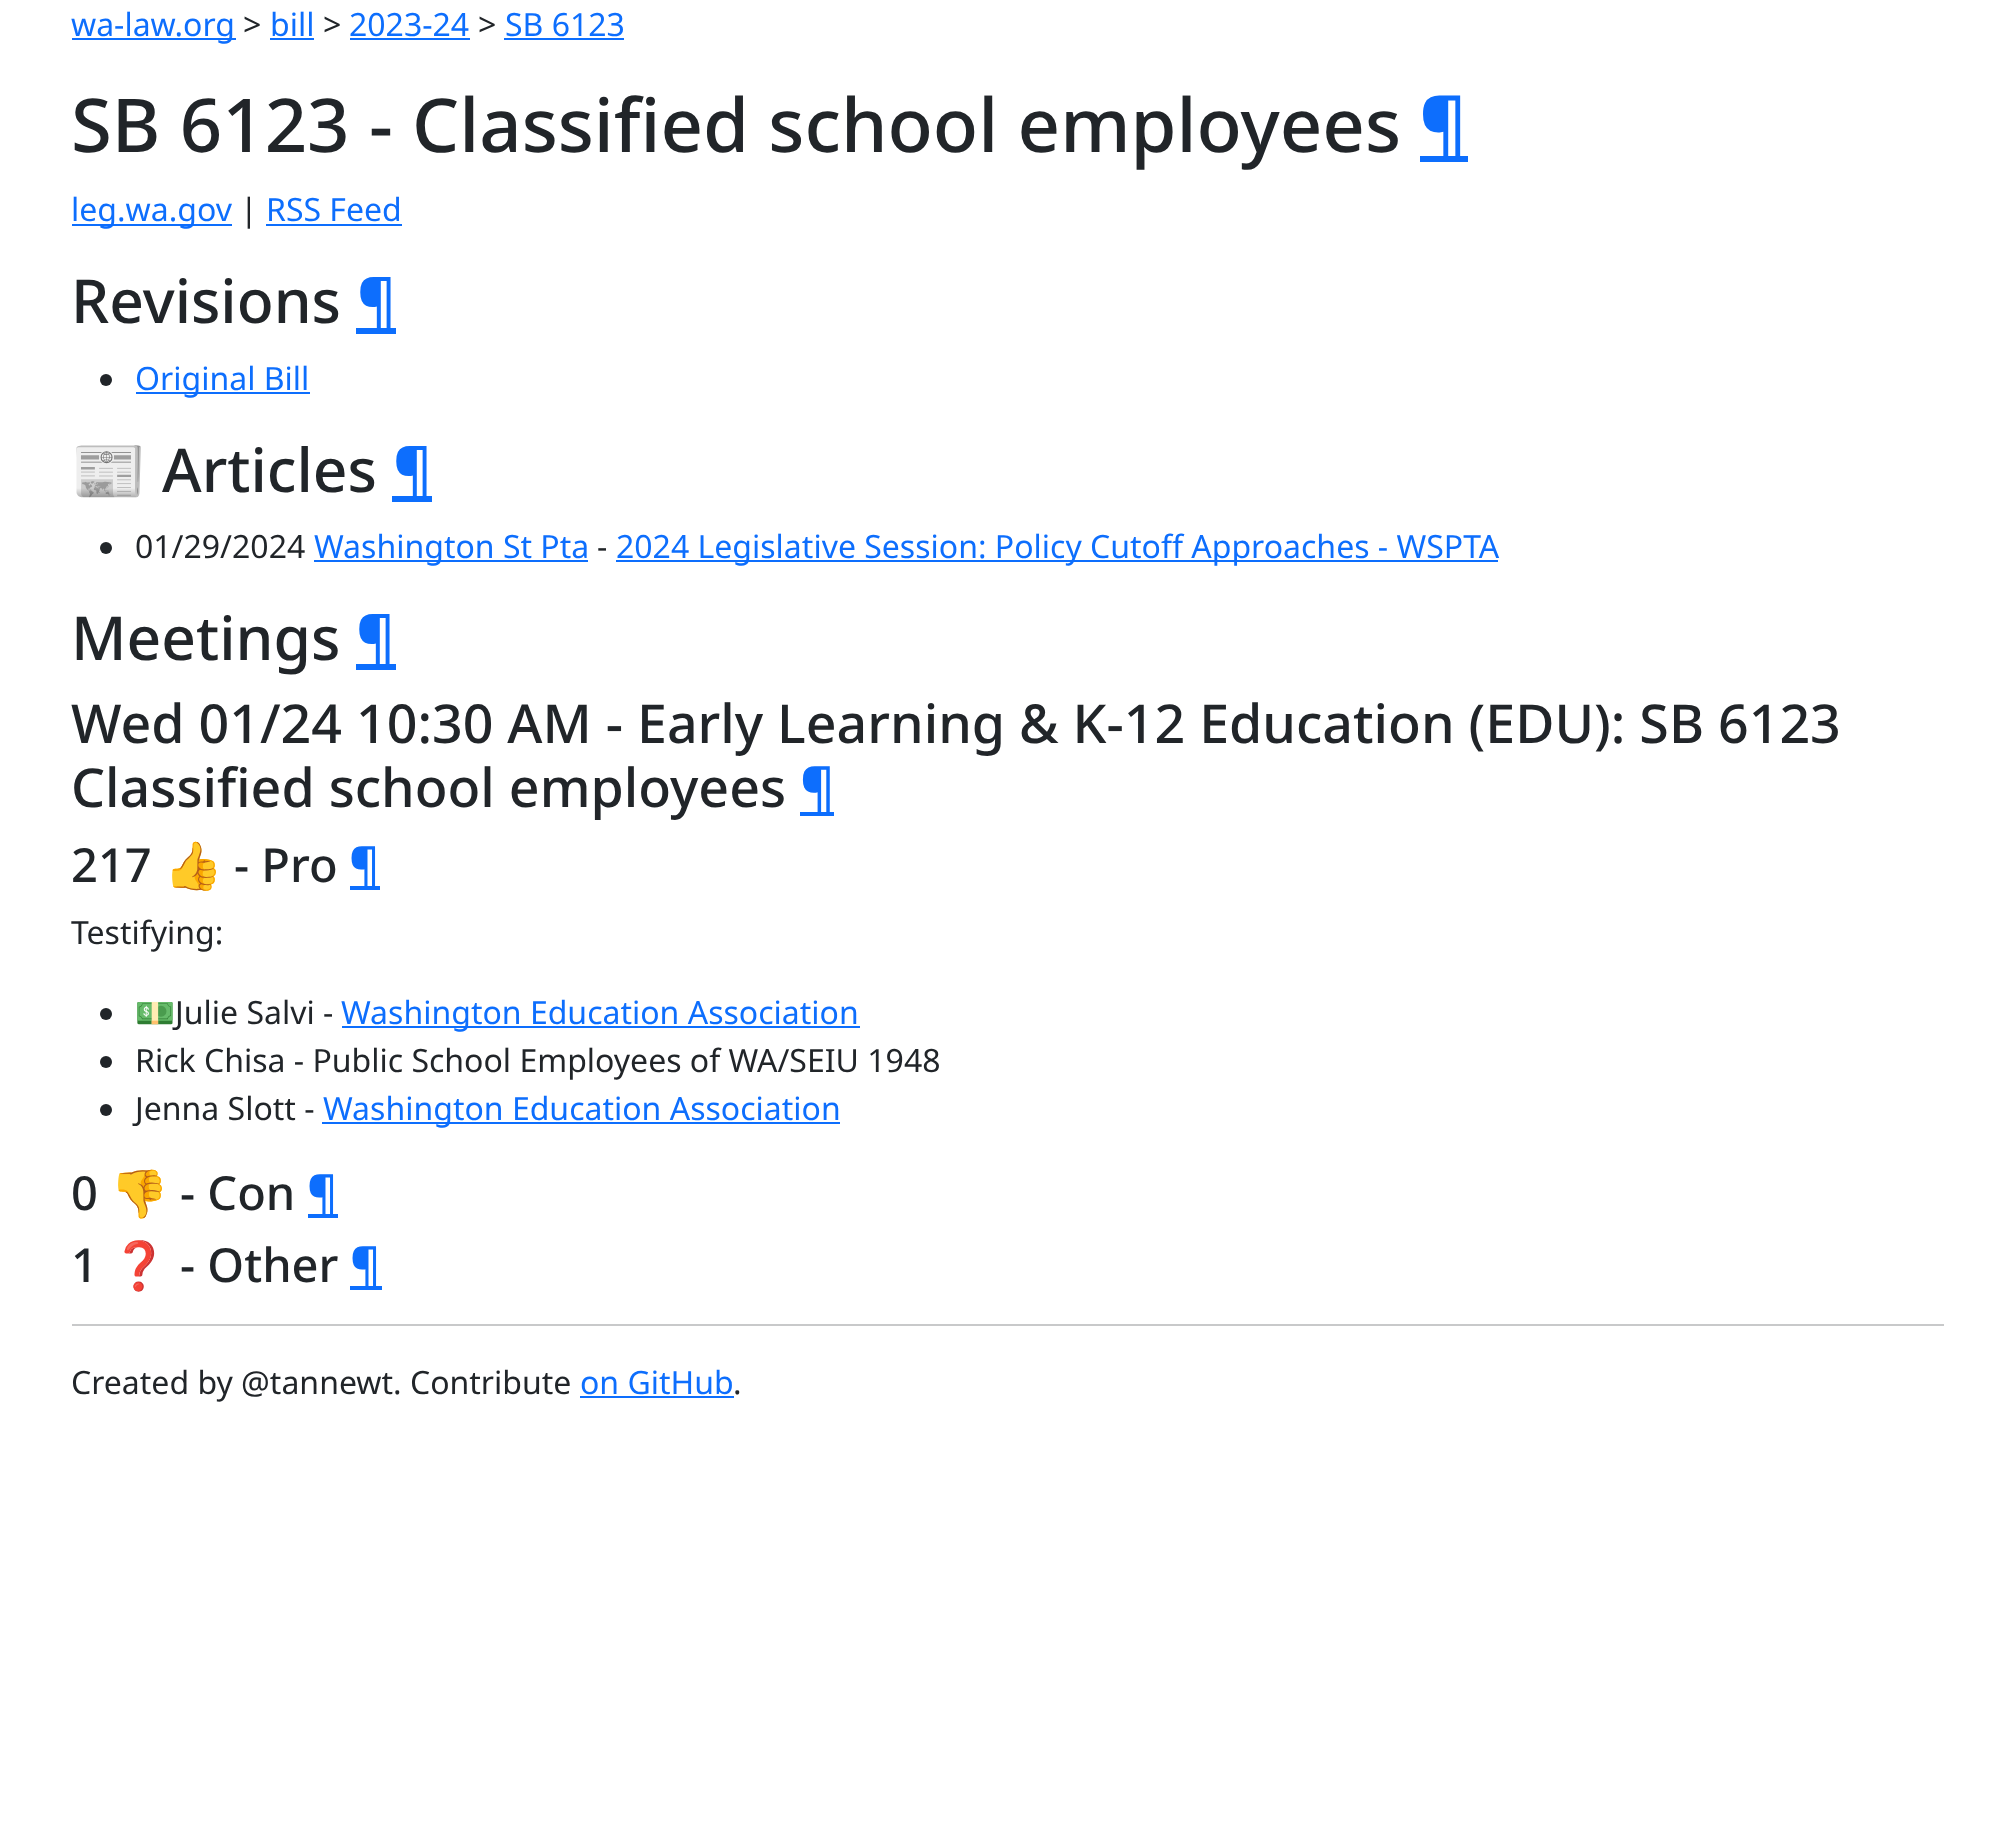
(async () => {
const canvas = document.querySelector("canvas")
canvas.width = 2014
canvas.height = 1824
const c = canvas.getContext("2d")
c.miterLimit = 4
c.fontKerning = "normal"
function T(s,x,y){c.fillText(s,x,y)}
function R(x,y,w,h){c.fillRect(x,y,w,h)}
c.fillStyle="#fff"
R(0,0,2014,1824)
c.fillStyle="#0d6efd"
R(72,38,164,2)
c.font="32px Noto Sans"
T("wa-law.org",71,36)
c.fillStyle="#212529"
T(">",243,36)
c.fillStyle="#0d6efd"
T("bill",270,36)
R(270,38,44,2)
c.fillStyle="#212529"
T(">",323,36)
c.fillStyle="#0d6efd"
T("2023-24",349,36)
R(350,38,120,2)
c.fillStyle="#212529"
T(">",478,36)
c.fillStyle="#0d6efd"
T("SB 6123",505,36)
R(504,38,120,2)
c.font="500 74.25px Noto Sans"
c.fillStyle="#212529"
T("SB 6123 - Classified school employees",71,152)
c.fillStyle="#0d6efd"
R(1420,156,48,6)
T("¶",1419,152)
R(72,224,160,2)
c.font="32px Noto Sans"
T("leg.wa.gov",71,221)
c.fillStyle="#212529"
T("|",240,221)
c.fillStyle="#0d6efd"
T("RSS Feed",266,221)
R(266,224,136,2)
c.font="500 60.5px Noto Sans"
c.fillStyle="#212529"
T("Revisions",71,323)
c.fillStyle="#0d6efd"
R(356,328,40,6)
T("¶",357,323)
c.fillStyle="#212529"
c.beginPath()
c.arc(106,380,6,0,7)
c.fill()
c.fillStyle="#0d6efd"
R(136,392,174,2)
c.font="32px Noto Sans"
T("Original Bill",135,390)
c.font="60.5px Noto Color Emoji"
c.fillStyle="#212529"
T("📰",71,492)
c.font="500 60.5px Noto Sans"
T("Articles",162,492)
c.fillStyle="#0d6efd"
R(392,496,40,6)
T("¶",393,492)
c.fillStyle="#212529"
c.beginPath()
c.arc(106,548,6,0,7)
c.fill()
c.font="32px Noto Sans"
T("01/29/2024",135,558)
c.fillStyle="#0d6efd"
R(314,560,274,2)
T("Washington St Pta",314,558)
c.fillStyle="#212529"
T("-",597,558)
c.fillStyle="#0d6efd"
R(616,560,882,2)
T("2024 Legislative Session: Policy Cutoff Approaches - WSPTA",616,558)
c.font="500 60.5px Noto Sans"
c.fillStyle="#212529"
T("Meetings",71,660)
c.fillStyle="#0d6efd"
R(356,664,40,6)
T("¶",356,660)
c.font="500 53.7px Noto Sans"
c.fillStyle="#212529"
T("Wed 01/24 10:30 AM - Early Learning & K-12 Education (EDU): SB 6123",71,743)
T("Classified school employees",71,807)
c.fillStyle="#0d6efd"
R(800,812,34,4)
T("¶",800,807)
c.font="500 47px Noto Sans"
c.fillStyle="#212529"
T("217",71,882)
c.font="47px Noto Color Emoji"
T("👍",164,882)
c.font="500 47px Noto Sans"
T("- Pro",234,882)
c.fillStyle="#0d6efd"
R(350,886,30,4)
T("¶",349,882)
c.font="32px Noto Sans"
c.fillStyle="#212529"
T("Testifying:",71,944)
c.beginPath()
c.arc(106,1014,6,0,7)
c.fill()
c.font="32px Noto Color Emoji"
T("💵",135,1024)
c.font="32px Noto Sans"
T("Julie Salvi -",175,1024)
c.fillStyle="#0d6efd"
R(342,1026,518,2)
T("Washington Education Association",341,1024)
c.fillStyle="#212529"
c.beginPath()
c.arc(106,1062,6,0,7)
c.fill()
T("Rick Chisa - Public School Employees of WA/SEIU 1948",135,1072)
c.beginPath()
c.arc(106,1110,6,0,7)
c.fill()
T("Jenna Slott -",135,1120)
c.fillStyle="#0d6efd"
R(322,1122,518,2)
T("Washington Education Association",323,1120)
c.font="500 47px Noto Sans"
c.fillStyle="#212529"
T("0",71,1210)
c.font="47px Noto Color Emoji"
T("👎",110,1210)
c.font="500 47px Noto Sans"
T("- Con",180,1210)
c.fillStyle="#0d6efd"
R(308,1214,30,4)
T("¶",307,1210)
c.fillStyle="#212529"
T("1",71,1282)
c.font="47px Noto Color Emoji"
T("❓",110,1282)
c.font="500 47px Noto Sans"
T("- Other",180,1282)
c.fillStyle="#0d6efd"
R(350,1286,32,4)
T("¶",350,1282)
c.fillStyle="#c8c9ca"
R(72,1324,1872,2)
c.font="32px Noto Sans"
c.fillStyle="#212529"
T("Created by @tannewt. Contribute",71,1394)
c.fillStyle="#0d6efd"
T("on GitHub",580,1394)
R(580,1396,154,2)
c.fillStyle="#212529"
T(".",733,1394)
})()
